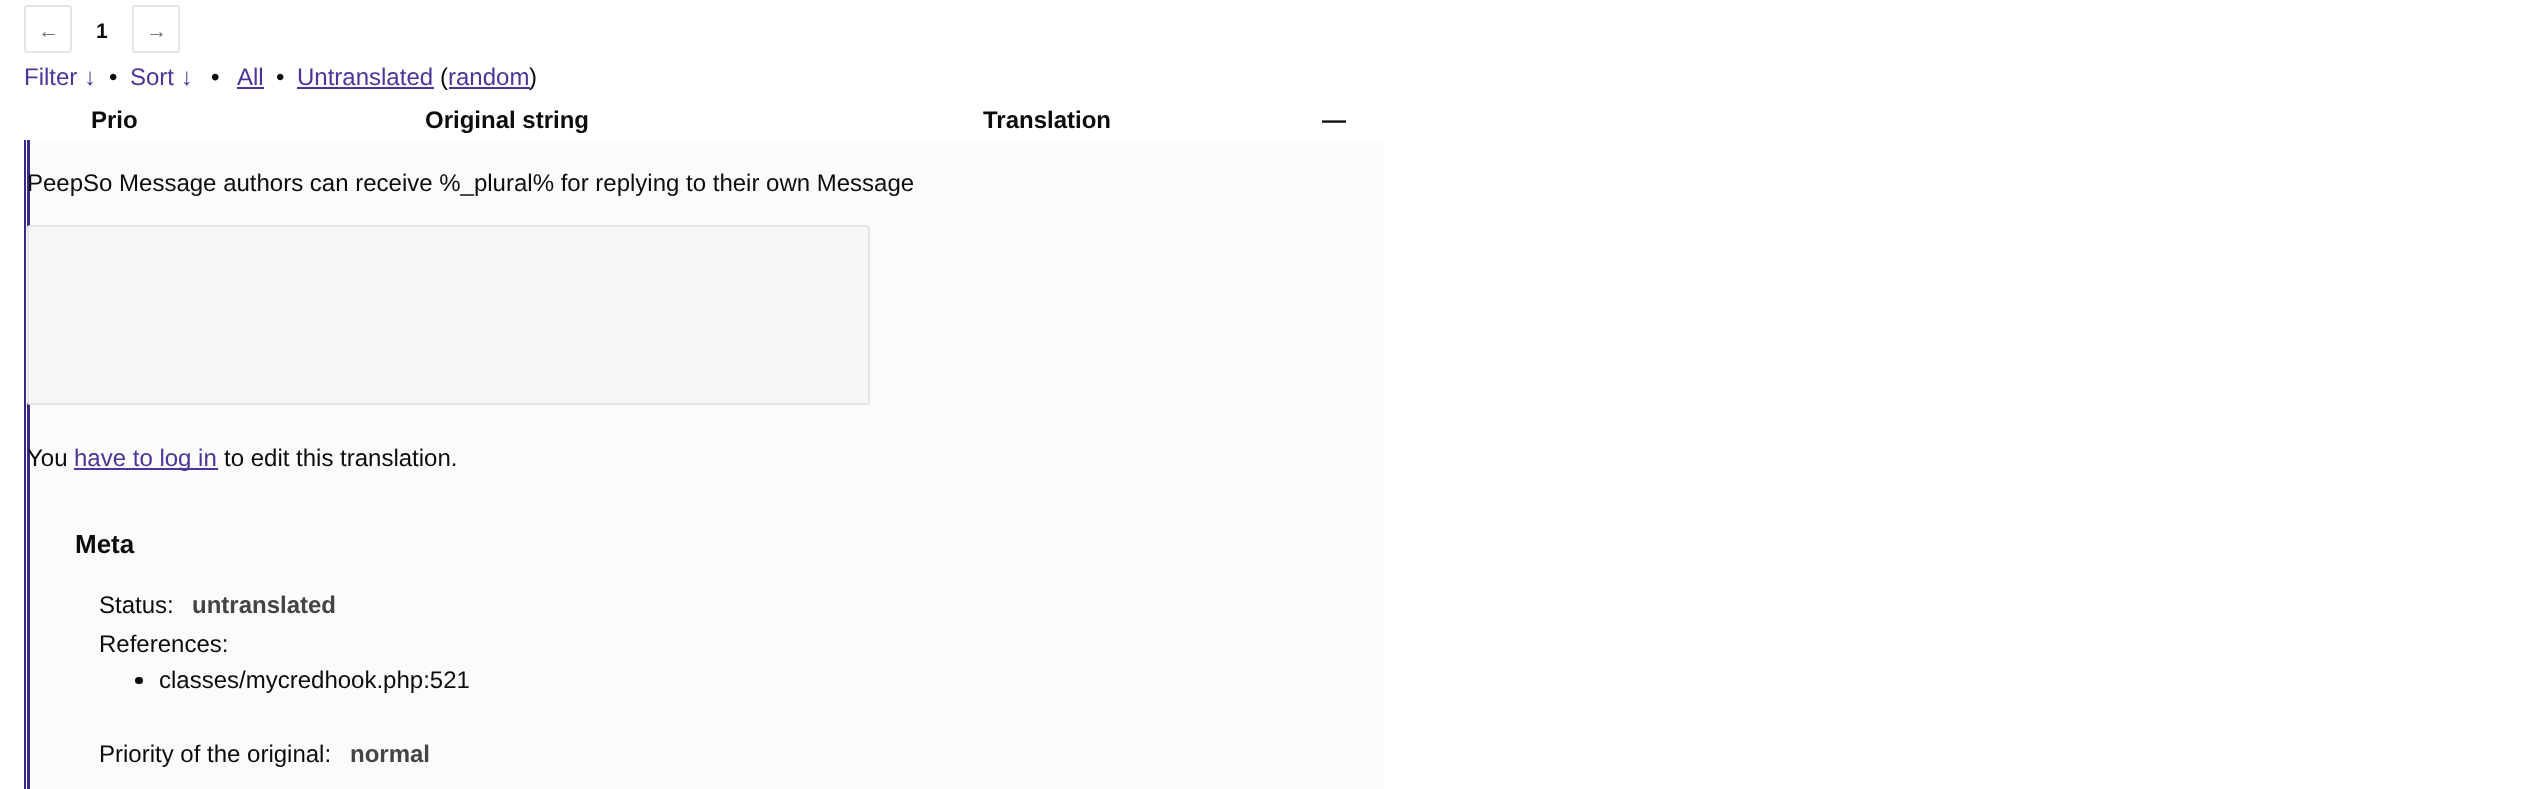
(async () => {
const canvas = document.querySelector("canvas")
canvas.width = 2523
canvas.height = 789
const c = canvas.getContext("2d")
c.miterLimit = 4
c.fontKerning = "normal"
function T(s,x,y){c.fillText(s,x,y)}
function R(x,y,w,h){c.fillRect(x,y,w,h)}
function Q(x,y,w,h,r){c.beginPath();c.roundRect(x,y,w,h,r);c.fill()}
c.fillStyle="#fff"
R(0,0,2523,789)
c.beginPath()
c.roundRect(25,6,46,46,2)
c.strokeStyle="#e4e4e4"
c.lineWidth=2
c.stroke()
c.font="21px Liberation Sans"
c.fillStyle="#7a7a7a"
T("←",38,38)
c.font="bold 21px Liberation Sans"
c.fillStyle="#0b0c0c"
T("1",96,38)
c.beginPath()
c.roundRect(133,6,46,46,2)
c.stroke()
c.font="21px Liberation Sans"
c.fillStyle="#7a7a7a"
T("→",146,38)
c.font="24px Liberation Sans"
c.fillStyle="#4e3499"
T("Filter ↓",24,85)
c.fillStyle="#0b0c0c"
T("•",109,85)
c.fillStyle="#4e3499"
T("Sort ↓",130,85)
c.font="bold 24px Liberation Sans"
c.fillStyle="#0b0c0c"
T("•",211,85)
c.font="24px Liberation Sans"
c.fillStyle="#4e3499"
T("All",237,85)
R(237,87,27,2)
c.fillStyle="#0b0c0c"
T("•",276,85)
c.fillStyle="#4e3499"
T("Untranslated",297,85)
R(297,87,137,2)
c.fillStyle="#0b0c0c"
T("(",440,85)
c.fillStyle="#4e3499"
T("random",448,85)
R(449,87,81,2)
c.fillStyle="#0b0c0c"
T(")",529,85)
c.font="bold 24px Liberation Sans"
T("Prio",91,128)
T("Original string",425,128)
T("Translation",983,128)
T("—",1322,128)
c.fillStyle="#fbfbfb"
R(26,140,1357,649)
c.fillStyle="#39298b"
R(27,140,3,649)
R(24,140,2,649)
c.font="24px Liberation Sans"
c.fillStyle="#0b0c0c"
T("PeepSo Message authors can receive %_plural% for replying to their own Message",27,191)
c.fillStyle="#f6f6f6"
c.beginPath()
c.roundRect(28,226,841,178,2)
c.fill()
c.stroke()
c.fillStyle="#0b0c0c"
T("You",27,466)
c.fillStyle="#4e3499"
R(74,468,144,2)
T("have to log in",74,466)
c.fillStyle="#0b0c0c"
T("to edit this translation.",224,466)
c.font="bold 26px Liberation Sans"
T("Meta",75,553)
c.font="24px Liberation Sans"
T("Status:",99,613)
c.font="bold 24px Liberation Sans"
c.fillStyle="#444"
T("untranslated",192,613)
c.font="24px Liberation Sans"
c.fillStyle="#0b0c0c"
T("References:",99,652)
Q(135,677,8,7,3.5)
T("classes/mycredhook.php:521",159,688)
T("Priority of the original:",99,762)
c.font="bold 24px Liberation Sans"
c.fillStyle="#444"
T("normal",350,762)
})()
